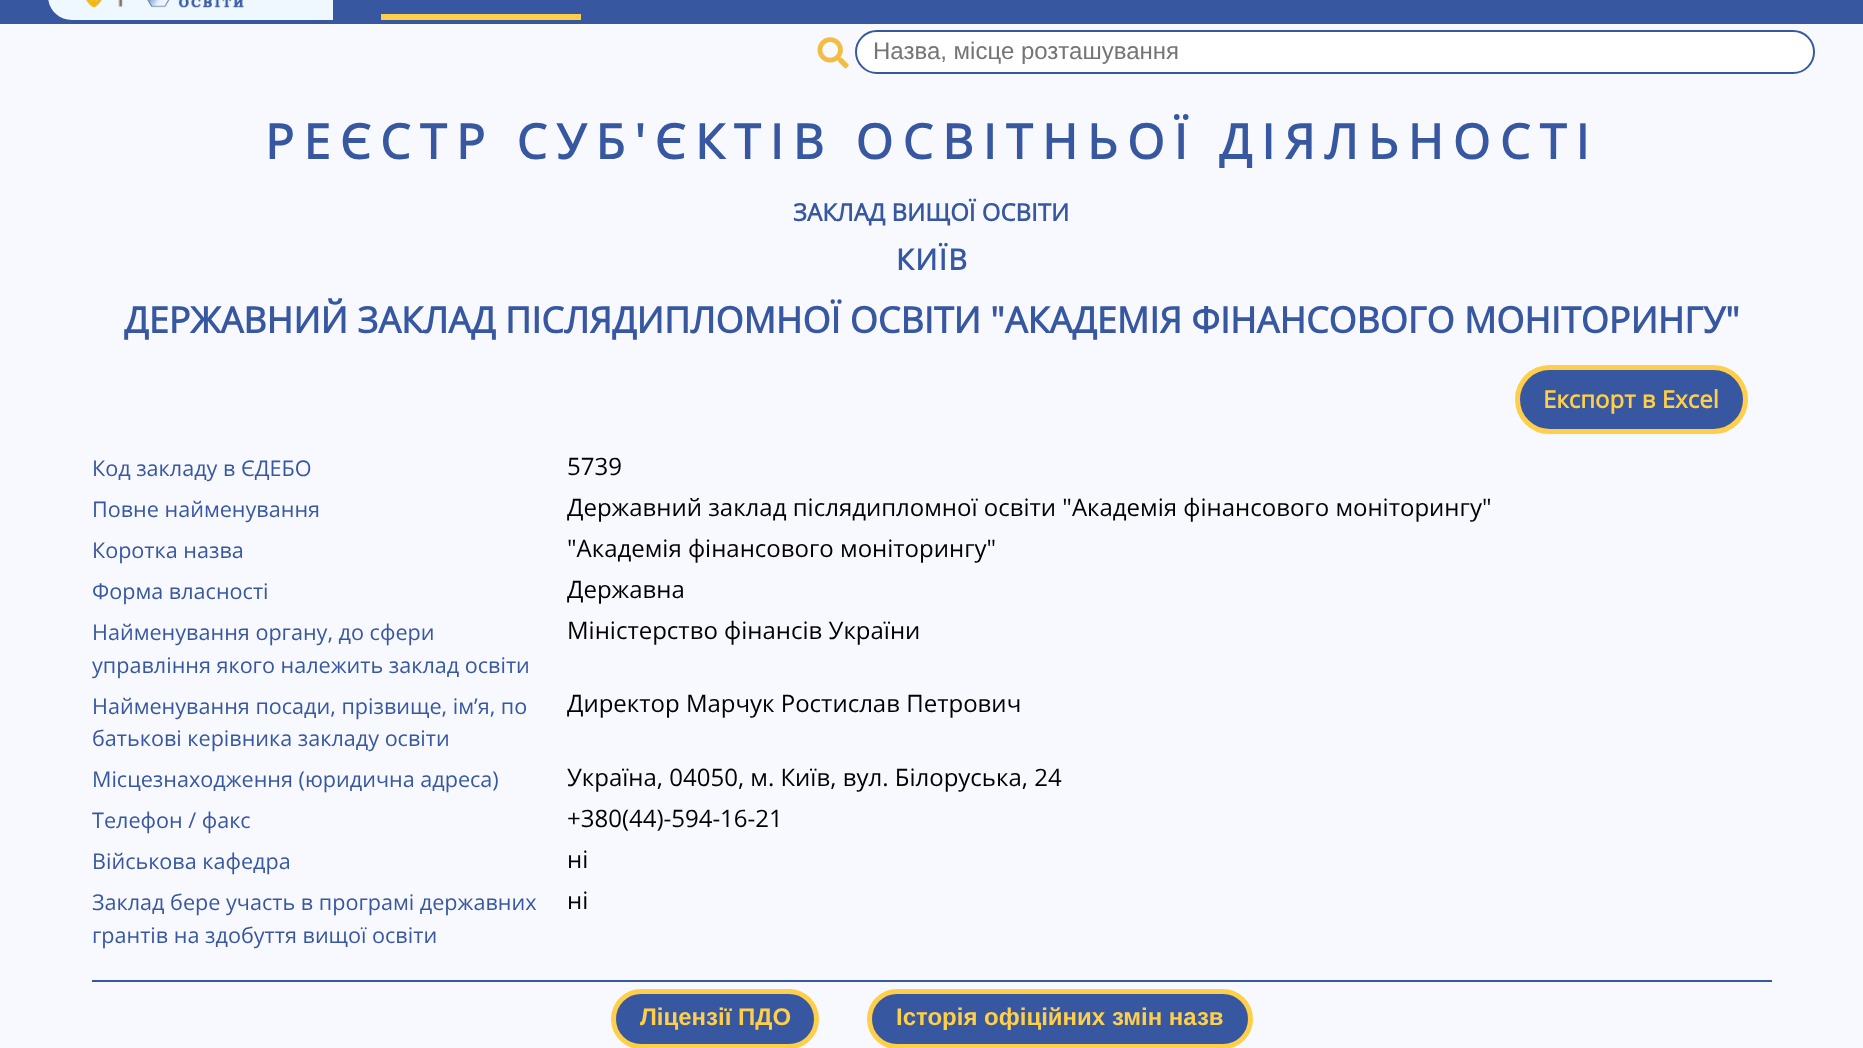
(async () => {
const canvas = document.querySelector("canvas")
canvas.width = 1863
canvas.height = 1048
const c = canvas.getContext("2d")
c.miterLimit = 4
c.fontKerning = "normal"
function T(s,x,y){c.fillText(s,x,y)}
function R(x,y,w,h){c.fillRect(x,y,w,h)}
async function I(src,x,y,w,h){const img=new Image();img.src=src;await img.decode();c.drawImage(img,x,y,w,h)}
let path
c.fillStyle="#f8f8ff"
R(0,0,1863,1048)
c.fillStyle="#3758a1"
R(0,0,1863,24)
c.fillStyle="#f0f8ff"
path = new Path2D("M48-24h261c13.5 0 24 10.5 24 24v20h-261c-13.5 0-24-10.5-24-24z")
c.fill(path)
await I("1.png",86,0,158,8)
c.fillStyle="#ffcf4a"
R(381,14,200,6)
await I("2.png",817,37,32,32)
c.fillStyle="#fff"
c.beginPath()
c.roundRect(856,31,958,42,21)
c.fill()
c.strokeStyle="#3758a1"
c.lineWidth=2
c.stroke()
c.font="24px Liberation Sans"
c.fillStyle="#757575"
T("Назва, місце розташування",873,59)
c.letterSpacing="9.6px"
c.font="bold 48px Open Sans"
c.fillStyle="#3758a1"
T("РЕЄСТР СУБ'ЄКТІВ ОСВІТНЬОЇ ДІЯЛЬНОСТІ",265,159)
c.letterSpacing="0px"
c.font="bold 24px Open Sans"
T("ЗАКЛАД ВИЩОЇ ОСВІТИ",793,221)
c.letterSpacing="1.5px"
c.font="bold 29px Open Sans"
T("КИЇВ",896,270)
c.letterSpacing="0px"
c.font="bold 36px Open Sans"
T("ДЕРЖАВНИЙ ЗАКЛАД ПІСЛЯДИПЛОМНОЇ ОСВІТИ \"АКАДЕМІЯ ФІНАНСОВОГО МОНІТОРИНГУ\"",124,333)
c.beginPath()
c.roundRect(1517.5,367.5,228,64,32)
c.fill()
c.strokeStyle="#ffcf4a"
c.lineWidth=5
c.stroke()
c.font="bold 24px Open Sans"
c.fillStyle="#ffcf4a"
T("Експорт в Excel",1543,408)
c.font="21.6px Open Sans"
c.fillStyle="#3758a1"
T("Код закладу в ЄДЕБО",92,476)
c.font="24px Open Sans"
c.fillStyle="#000"
T("5739",567,475)
c.font="21.6px Open Sans"
c.fillStyle="#3758a1"
T("Повне найменування",92,517)
c.font="24px Open Sans"
c.fillStyle="#000"
T("Державний заклад післядипломної освіти \"Академія фінансового моніторингу\"",567,516)
c.font="21.6px Open Sans"
c.fillStyle="#3758a1"
T("Коротка назва",92,558)
c.font="24px Open Sans"
c.fillStyle="#000"
T("\"Академія фінансового моніторингу\"",567,557)
c.font="21.6px Open Sans"
c.fillStyle="#3758a1"
T("Форма власності",92,599)
c.font="24px Open Sans"
c.fillStyle="#000"
T("Державна",567,598)
c.font="21.6px Open Sans"
c.fillStyle="#3758a1"
T("Найменування органу, до сфери",92,640)
T("управління якого належить заклад освіти",92,673)
c.font="24px Open Sans"
c.fillStyle="#000"
T("Міністерство фінансів України",567,639)
c.font="21.6px Open Sans"
c.fillStyle="#3758a1"
T("Найменування посади, прізвище, ім’я, по",92,714)
T("батькові керівника закладу освіти",92,746)
c.font="24px Open Sans"
c.fillStyle="#000"
T("Директор Марчук Ростислав Петрович",567,712)
c.font="21.6px Open Sans"
c.fillStyle="#3758a1"
T("Місцезнаходження (юридична адреса)",92,787)
c.font="24px Open Sans"
c.fillStyle="#000"
T("Україна, 04050, м. Київ, вул. Білоруська, 24",567,786)
c.font="21.6px Open Sans"
c.fillStyle="#3758a1"
T("Телефон / факс",92,828)
c.font="24px Open Sans"
c.fillStyle="#000"
T("+380(44)-594-16-21",567,827)
c.font="21.6px Open Sans"
c.fillStyle="#3758a1"
T("Військова кафедра",92,869)
c.font="24px Open Sans"
c.fillStyle="#000"
T("ні",567,868)
c.font="21.6px Open Sans"
c.fillStyle="#3758a1"
T("Заклад бере участь в програмі державних",92,910)
T("грантів на здобуття вищої освіти",92,943)
c.font="24px Open Sans"
c.fillStyle="#000"
T("ні",567,909)
c.fillStyle="#3758a1"
R(92,980,1680,2)
c.beginPath()
c.roundRect(613.5,991.5,203,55,27.5)
c.fill()
c.stroke()
c.font="bold 24px Liberation Sans"
c.fillStyle="#ffcf4a"
T("Ліцензії ПДО",640,1025)
c.fillStyle="#3758a1"
c.beginPath()
c.roundRect(869.5,991.5,381,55,27.5)
c.fill()
c.stroke()
c.fillStyle="#ffcf4a"
T("Історія офіційних змін назв",896,1025)
})()
